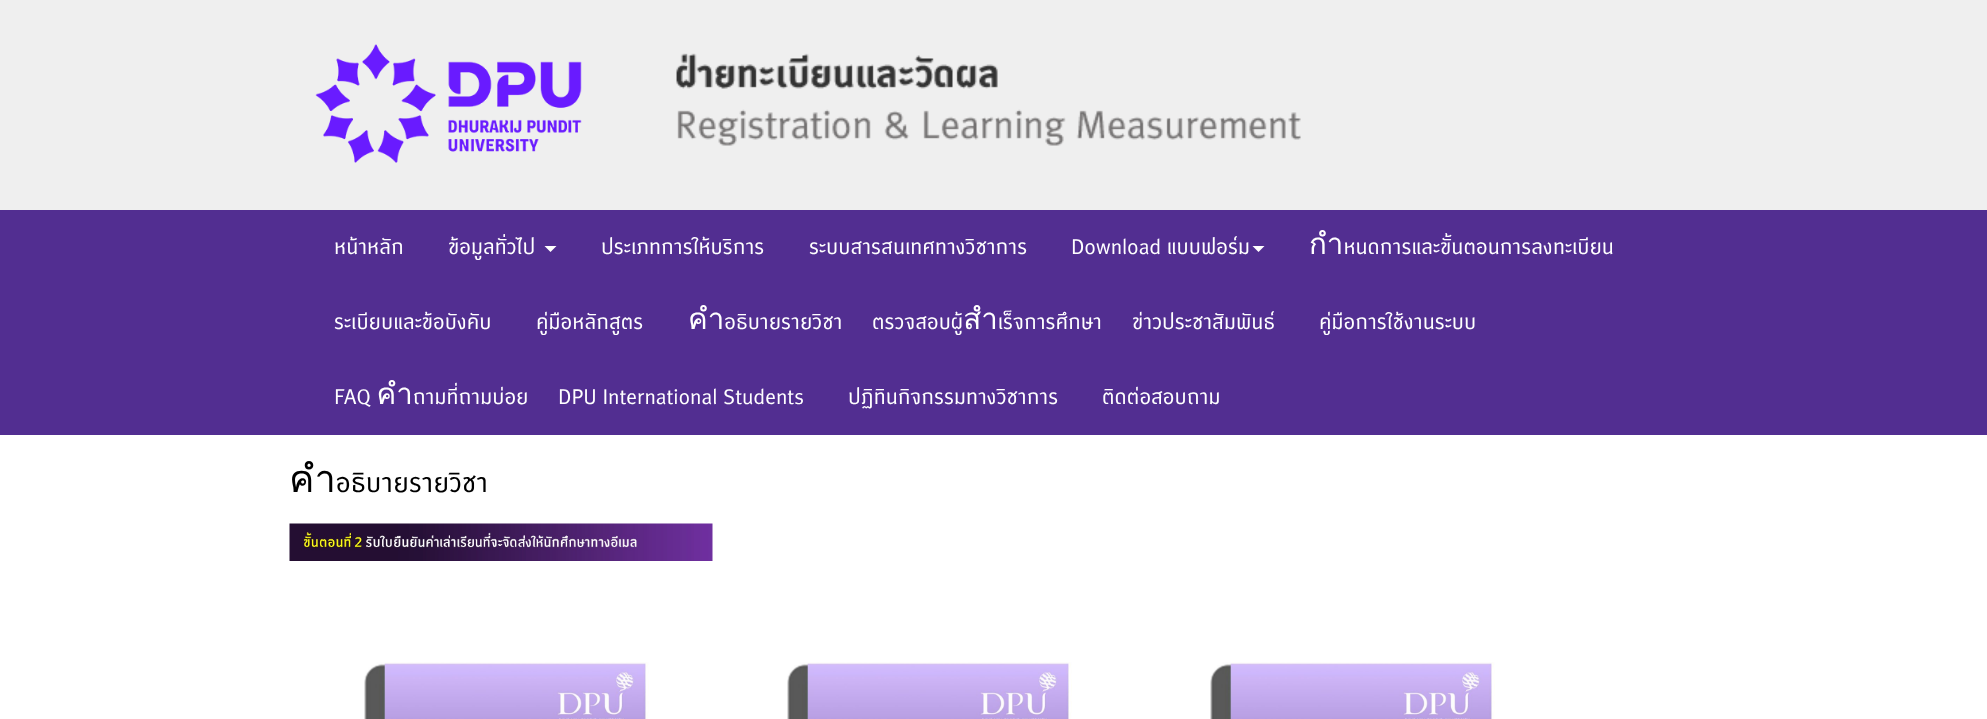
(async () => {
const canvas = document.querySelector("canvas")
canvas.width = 1987
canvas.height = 719
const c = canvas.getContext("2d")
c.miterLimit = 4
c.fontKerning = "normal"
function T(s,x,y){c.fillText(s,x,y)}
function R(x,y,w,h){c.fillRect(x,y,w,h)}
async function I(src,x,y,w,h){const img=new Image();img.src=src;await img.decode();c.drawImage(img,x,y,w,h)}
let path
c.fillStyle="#efefef"
R(0,0,1987,719)
await I("1.png",315,44,267,119)
await I("2.png",676,53,625,93)
c.fillStyle="#522e91"
R(0,210,1987,225)
c.font="29.5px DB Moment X"
c.fillStyle="#fff"
T("หน้าหลัก",334,254)
T("ข้อมูลทั่วไป",448,254)
path = new Path2D("M544.5 246h12l-6 6z")
c.fill(path)
T("ประเภทการให้บริการ",601,254)
T("ระบบสารสนเทศทางวิชาการ",809,254)
T("Download แบบฟอร์ม",1071,254)
path = new Path2D("M1252.5 246h12l-6 6z")
c.fill(path)
T("กำหนดการและขั้นตอนการลงทะเบียน",1309,254)
T("ระเบียบและข้อบังคับ",334,329)
T("คู่มือหลักสูตร",536,329)
T("คำอธิบายรายวิชา",688,329)
T("ตรวจสอบผู้สำเร็จการศึกษา",872,329)
T("ข่าวประชาสัมพันธ์",1132,329)
T("คู่มือการใช้งานระบบ",1319,329)
T("FAQ คำถามที่ถามบ่อย",334,404)
T("DPU International Students",558,404)
T("ปฏิทินกิจกรรมทางวิชาการ",848,404)
T("ติดต่อสอบถาม",1102,404)
R(0,435,1987,284)
c.font="38px DB Moment X"
c.fillStyle="#000"
T("คำอธิบายรายวิชา",289,492)
await I("3.png",289,523,424,38)
await I("4.png",364,662,285,57)
await I("4.png",787,662,285,57)
await I("5.png",1210,662,285,57)
})()
